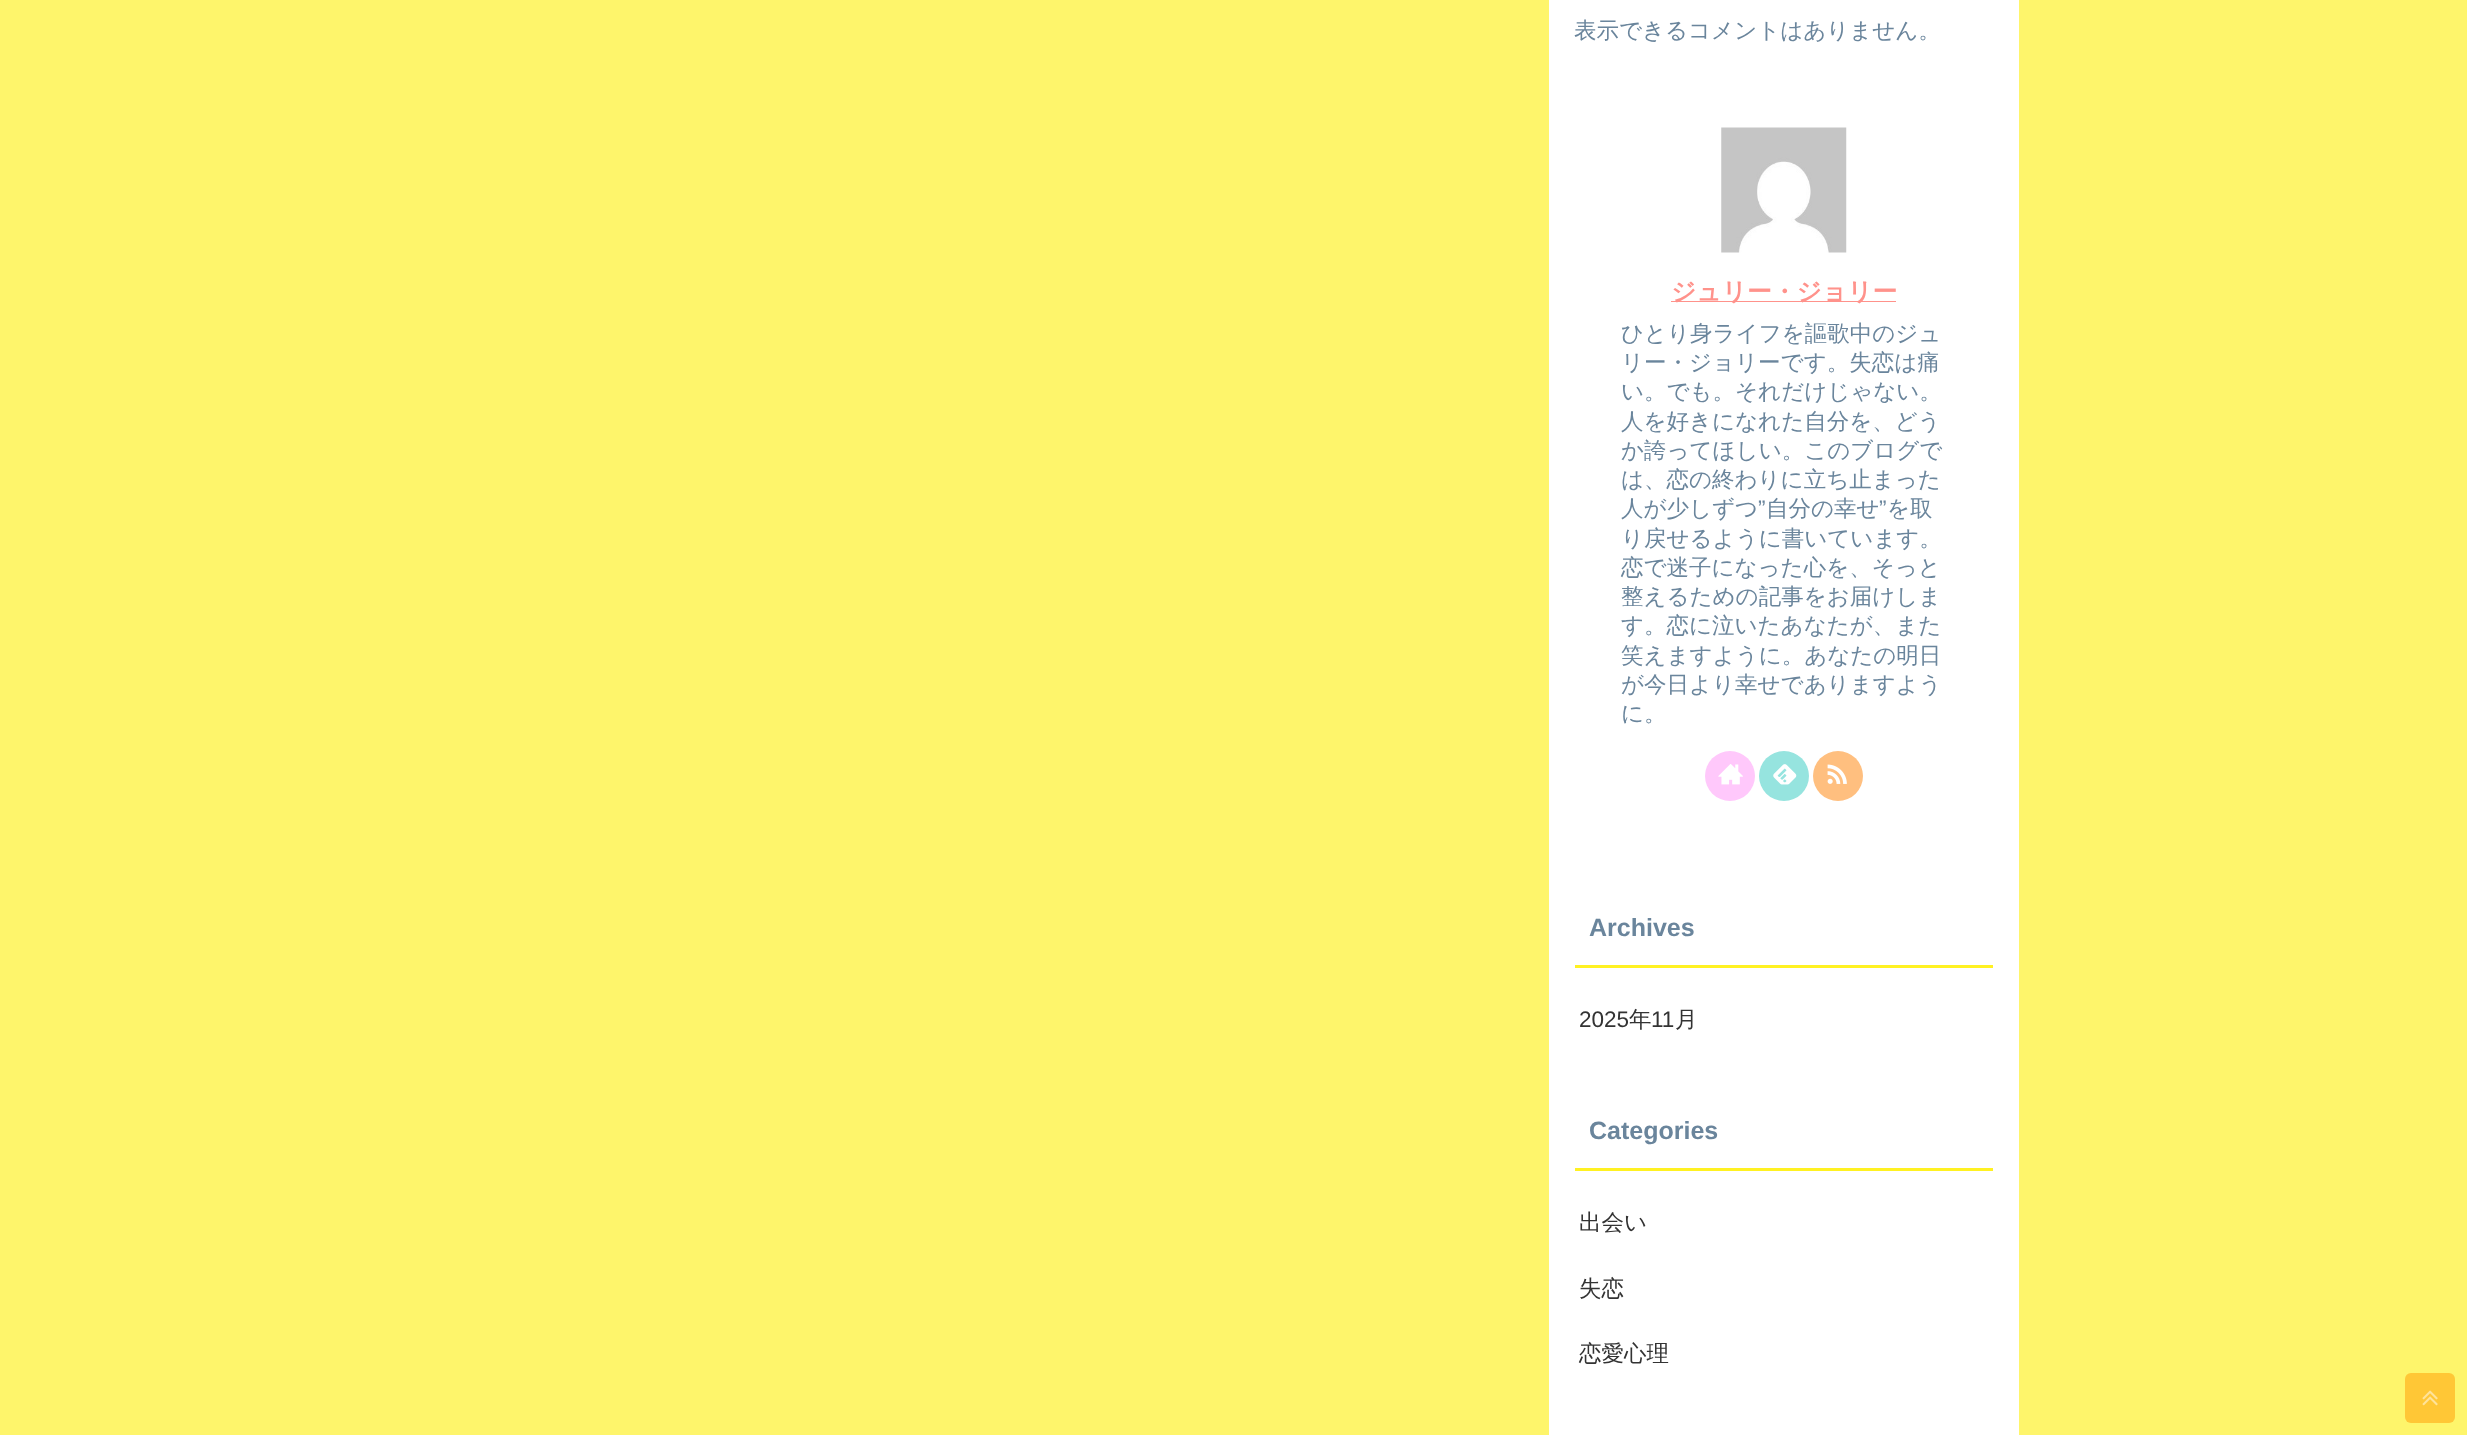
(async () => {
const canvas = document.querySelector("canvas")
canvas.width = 2467
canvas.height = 1435
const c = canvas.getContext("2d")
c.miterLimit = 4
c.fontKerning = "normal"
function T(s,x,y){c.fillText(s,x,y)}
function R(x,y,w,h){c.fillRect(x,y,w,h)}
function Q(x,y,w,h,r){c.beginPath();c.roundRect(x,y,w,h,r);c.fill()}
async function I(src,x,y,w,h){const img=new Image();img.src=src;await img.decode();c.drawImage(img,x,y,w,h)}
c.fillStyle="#fef56b"
R(0,0,2467,1435)
c.fillStyle="#fff"
R(1549,0,470,1435)
c.font="500 22.5px WenQuanYi Zen Hei"
c.fillStyle="#6a859c"
T("表示できるコメントはありません。",1574,38)
await I("1.png",1721,127,126,126)
c.fillStyle="#ff928b"
R(1671,301,225,1)
c.font="bold 24.75px WenQuanYi Zen Hei"
T("ジュリー・ジョリー",1671,300)
c.font="500 22.5px WenQuanYi Zen Hei"
c.fillStyle="#6a859c"
T("ひとり身ライフを謳歌中のジュ",1621,341)
T("リー・ジョリーです。失恋は痛",1621,370)
T("い。でも。それだけじゃない。",1621,399)
T("人を好きになれた自分を、どう",1621,429)
T("か誇ってほしい。このブログで",1621,458)
T("は、恋の終わりに立ち止まった",1621,487)
T("人が少しずつ",1621,516)
c.font="22.5px Liberation Sans"
T("”",1758,516)
c.font="500 22.5px WenQuanYi Zen Hei"
T("自分の幸せ",1766,516)
c.font="22.5px Liberation Sans"
T("”",1879,516)
c.font="500 22.5px WenQuanYi Zen Hei"
T("を取",1887,516)
T("り戻せるように書いています。",1621,546)
T("恋で迷子になった心を、そっと",1621,575)
T("整えるための記事をお届けしま",1621,604)
T("す。恋に泣いたあなたが、また",1621,633)
T("笑えますように。あなたの明日",1621,663)
T("が今日より幸せでありますよう",1621,692)
T("に。",1621,721)
c.fillStyle="#ffc8fb"
c.beginPath()
c.arc(1730,776,25,0,7)
c.fill()
await I("2.png",1718,764,25,21)
c.fillStyle="#96e4df"
c.beginPath()
c.arc(1784,776,25,0,7)
c.fill()
await I("3.png",1773,764,24,21)
c.fillStyle="#ffbf7f"
c.beginPath()
c.arc(1838,776,25,0,7)
c.fill()
await I("4.png",1827,764,20,20)
c.fillStyle="#fff122"
R(1575,965,418,3)
c.font="bold 25px Liberation Sans"
c.fillStyle="#6a859c"
T("Archives",1589,936)
c.font="22.5px Liberation Sans"
c.fillStyle="#333"
T("2025",1579,1027)
c.font="500 22.5px WenQuanYi Zen Hei"
T("年",1629,1027)
c.font="22.5px Liberation Sans"
T("11",1651,1027)
c.font="500 22.5px WenQuanYi Zen Hei"
T("月",1675,1027)
c.fillStyle="#fff122"
R(1575,1168,418,3)
c.font="bold 25px Liberation Sans"
c.fillStyle="#6a859c"
T("Categories",1589,1139)
c.font="500 22.5px WenQuanYi Zen Hei"
c.fillStyle="#333"
T("出会い",1579,1230)
T("失恋",1579,1296)
T("恋愛心理",1579,1361)
c.fillStyle="#ffc736"
Q(2405,1373,50,50,6)
await I("5.png",2422,1390,16,16)
})()
